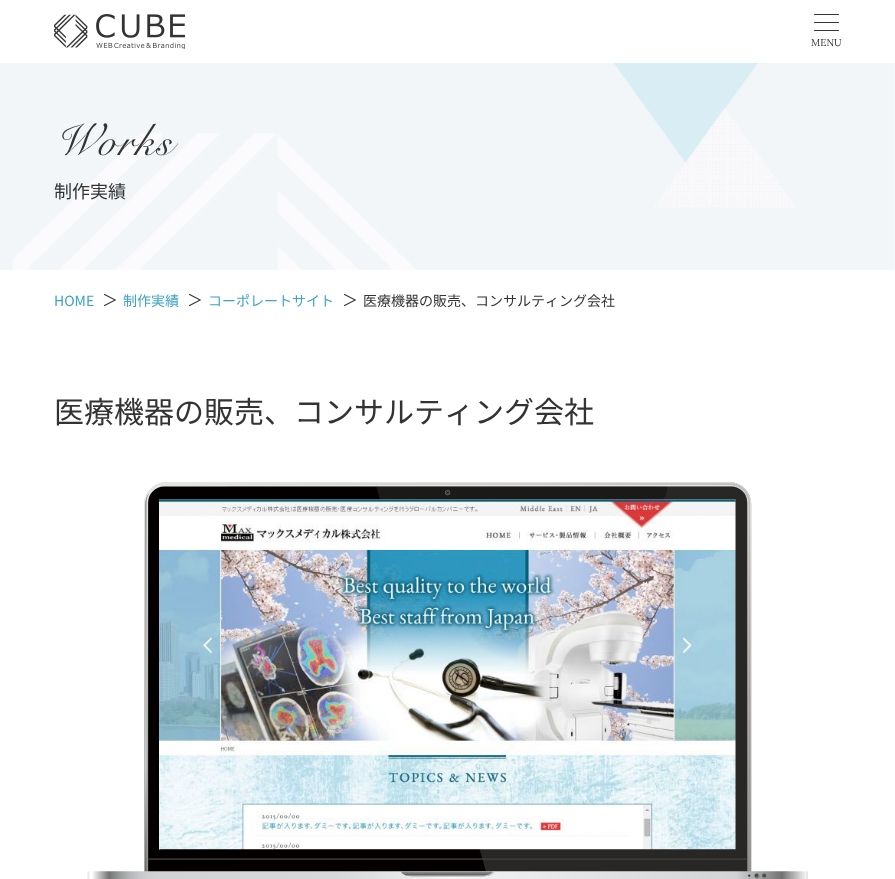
(async () => {
const canvas = document.querySelector("canvas")
canvas.width = 895
canvas.height = 879
const c = canvas.getContext("2d")
c.miterLimit = 4
c.fontKerning = "normal"
function T(s,x,y){c.fillText(s,x,y)}
function R(x,y,w,h){c.fillRect(x,y,w,h)}
function Q(x,y,w,h,r){c.beginPath();c.roundRect(x,y,w,h,r);c.fill()}
async function I(src,x,y,w,h){const img=new Image();img.src=src;await img.decode();c.drawImage(img,x,y,w,h)}
c.fillStyle="#fff"
R(0,0,895,879)
await I("1.png",54,14,131,35)
c.fillStyle="#333"
Q(814,14,25,1,.5)
Q(814,22,25,1,.5)
Q(814,30,25,1,.5)
c.font="10px Lora"
T("MENU",811,46)
await I("2.png",0,63,895,207)
c.letterSpacing="1.5px"
c.font="45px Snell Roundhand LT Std"
T("Works",54,155)
c.letterSpacing="0px"
c.font="18px Noto Sans JP"
T("制作実績",54,198)
c.font="14px Noto Sans JP"
c.fillStyle="#3fa3c5"
T("HOME",54,306)
c.font="16px Noto Sans JP"
c.fillStyle="#333"
T("＞",102,306)
c.font="14px Noto Sans JP"
c.fillStyle="#3fa3c5"
T("制作実績",123,306)
c.font="16px Noto Sans JP"
c.fillStyle="#333"
T("＞",187,306)
c.font="14px Noto Sans JP"
c.fillStyle="#3fa3c5"
T("コーポレートサイト",208,306)
c.font="16px Noto Sans JP"
c.fillStyle="#333"
T("＞",342,306)
c.font="14px Noto Sans JP"
T("医療機器の販売、コンサルティング会社",363,306)
c.font="30px Noto Sans JP"
T("医療機器の販売、コンサルティング会社",54,423)
await I("3.png",87,482,721,397)
})()
